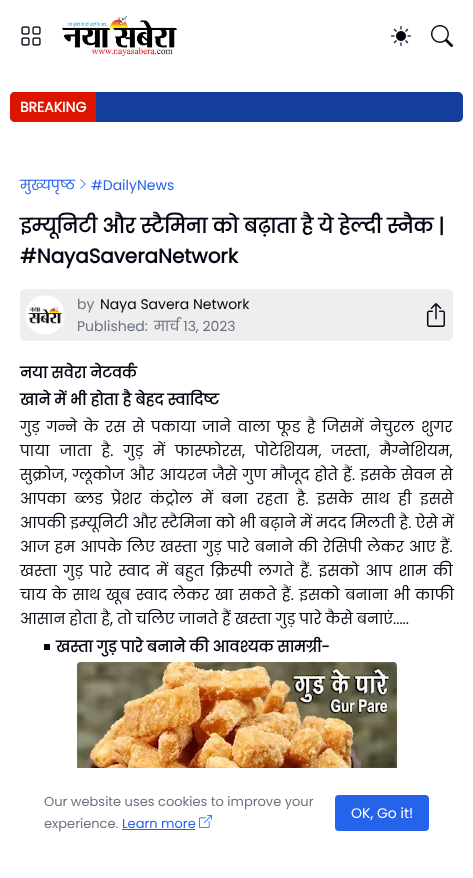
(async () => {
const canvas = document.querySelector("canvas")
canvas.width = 473
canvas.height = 878
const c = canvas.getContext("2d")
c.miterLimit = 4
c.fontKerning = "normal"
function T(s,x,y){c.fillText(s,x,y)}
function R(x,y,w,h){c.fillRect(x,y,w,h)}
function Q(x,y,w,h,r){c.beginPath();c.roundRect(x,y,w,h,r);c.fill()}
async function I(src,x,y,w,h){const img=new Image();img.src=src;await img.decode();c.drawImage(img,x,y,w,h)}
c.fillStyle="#fff"
R(0,0,473,878)
await I("1.png",21,26,20,20)
await I("2.png",62,16,115,40)
await I("3.png",391,26,20,20)
await I("4.png",431,25,22,22)
c.fillStyle="#143e9b"
Q(10,92,453,30,5)
c.fillStyle="#dd1400"
c.beginPath()
c.roundRect(10,92,86,30,[5,0,0,5])
c.fill()
c.font="bold 14px Poppins"
c.fillStyle="#fff"
T("BREAKING",20,112)
c.font="14px Poppins"
c.fillStyle="#2563eb"
T("मुख्यपृष्ठ",20,190)
await I("5.png",80,179,6,10)
T("#DailyNews",91,190)
c.letterSpacing="-0.1px"
c.wordSpacing="0.25px"
c.font="bold 20px Poppins"
c.fillStyle="#030712"
T("इम्यूनिटी और स्टैमिना को बढ़ाता है ये हेल्दी स्नैक |",20,233)
c.wordSpacing="0px"
T("#NayaSaveraNetwork",20,263)
c.fillStyle="#eee"
Q(20,289,433,52,5)
c.fillStyle="#fbf9f9"
c.beginPath()
c.arc(45,315,20,0,7)
c.fill()
await I("6.png",25,295,40,40)
c.letterSpacing="0px"
c.font="14px Poppins"
c.fillStyle="#6b7280"
T("by",77,309)
c.fillStyle="#030712"
T("Naya Savera Network",100,309)
c.fillStyle="#6b7280"
T("Published:",77,331)
T("मार्च 13, 2023",154,331)
await I("7.png",426,303,19,24)
c.font="bold 15px Poppins"
c.fillStyle="#030712"
T("नया सवेरा नेटवर्क",20,378)
T("खाने में भी होता है बेहद स्वादिष्ट",20,405)
c.wordSpacing="2.6px"
c.font="15px Poppins"
T("गुड़ गन्ने के रस से पकाया जाने वाला फूड है जिसमें नेचुरल शुगर",20,432)
c.wordSpacing="6px"
T("पाया जाता है. गुड़ में फास्फोरस, पोटेशियम, जस्ता, मैग्नेशियम,",20,456)
c.wordSpacing="1.1px"
T("सुक्रोज, ग्लूकोज और आयरन जैसे गुण मौजूद होते हैं. इसके सेवन से",20,480)
c.wordSpacing="4.5px"
T("आपका ब्लड प्रेशर कंट्रोल में बना रहता है. इसके साथ ही इससे",20,504)
c.wordSpacing="0.25px"
T("आपकी इम्यूनिटी और स्टैमिना को भी बढ़ाने में मदद मिलती है. ऐसे में",20,528)
c.wordSpacing="1.25px"
T("आज हम आपके लिए खस्ता गुड़ पारे बनाने की रेसिपी लेकर आए हैं.",20,552)
c.wordSpacing="2.5px"
T("खस्ता गुड़ पारे स्वाद में बहुत क्रिस्पी लगते हैं. इसको आप शाम की",20,576)
c.wordSpacing="1.5px"
T("चाय के साथ खूब स्वाद लेकर खा सकते हैं. इसको बनाना भी काफी",20,600)
c.wordSpacing="0px"
T("आसान होता है, तो चलिए जानते हैं खस्ता गुड़ पारे कैसे बनाएं.....",20,624)
R(44,644,6,6)
c.font="bold 15px Poppins"
T("खस्ता गुड़ पारे बनाने की आवश्यक सामग्री-",56,652)
await I("8.png",77,662,320,106)
c.font="13px Poppins"
c.fillStyle="#6b7280"
T("Our website uses cookies to improve your",44,806)
T("experience.",44,828)
c.fillStyle="#2563eb"
T("Learn more",122,828)
R(122,829,73,1)
await I("9.png",199,815,13,13)
Q(335,795,94,36,4)
c.font="14px Poppins"
c.fillStyle="#fff"
T("OK, Go it!",351,818)
})()
